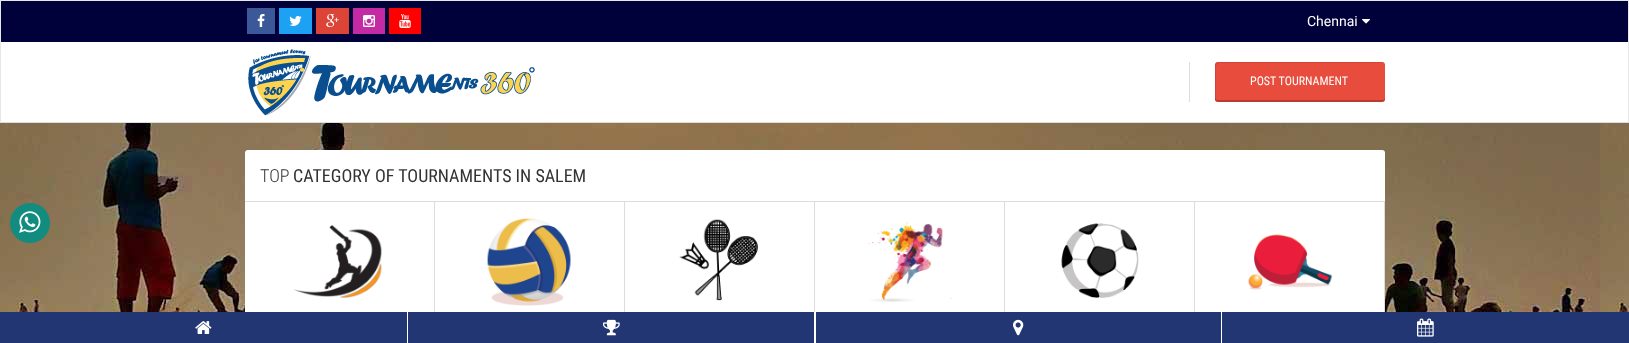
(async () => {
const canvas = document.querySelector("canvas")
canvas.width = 1629
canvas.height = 343
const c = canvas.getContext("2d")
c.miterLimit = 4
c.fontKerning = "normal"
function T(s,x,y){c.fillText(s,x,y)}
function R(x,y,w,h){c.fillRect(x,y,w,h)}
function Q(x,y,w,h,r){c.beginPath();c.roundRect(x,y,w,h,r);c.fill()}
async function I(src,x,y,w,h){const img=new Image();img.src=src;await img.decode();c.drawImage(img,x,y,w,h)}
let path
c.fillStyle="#fff"
R(0,0,1629,343)
await I("1.png",0,123,1629,189)
c.fillStyle="#e7e7e7"
R(0,0,1629,1)
R(1628,0,1,123)
c.fillStyle="#ddd"
R(0,122,1629,1)
c.fillStyle="#e7e7e7"
R(0,0,1,123)
c.fillStyle="#00003b"
R(1,1,1627,41)
c.fillStyle="#3b5998"
R(247,8,28,26)
await I("2.png",257,14,8,13)
c.fillStyle="#1da1f2"
R(279,8,33,26)
await I("3.png",289,16,13,10)
c.fillStyle="#db4437"
R(316,8,33,26)
await I("4.png",326,14,13,13)
c.fillStyle="#c32aa3"
R(353,8,32,26)
await I("5.png",363,15,12,12)
c.fillStyle="#f00"
R(389,8,32,26)
await I("6.png",399,14,12,14)
c.font="14px Roboto"
c.fillStyle="#fff"
T("Chennai",1307,26)
await I("7.png",1362,19,8,5)
await I("8.png",248,49,287,67)
c.fillStyle="#ddd"
R(1189,62,1,40)
c.fillStyle="#e74c3c"
Q(1215,62,170,40,3)
c.fillStyle="#0000001a"
path = new Path2D("M1219 63h165c0-1-1-1-2-1h-164c-2 0-3 1-3 3v34c0 1 0 2 1 2v-29c0-3-1-9 3-9z")
c.fill(path)
c.fillStyle="#00000033"
path = new Path2D("M1215 97v2c0 2 1 3 3 3h164c2 0 3-1 3-3v-2c0 2-1 3-3 3h-164c-2 0-3-1-3-3z")
c.fill(path)
c.font="12px Roboto Condensed"
c.fillStyle="#fff"
T("POST TOURNAMENT",1250,85)
c.fillStyle="#b4b4b480"
c.filter="blur(0.5px)"
c.beginPath()
c.roundRect(245,151,1140,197,3)
c.fill()
c.filter="none"
c.fillStyle="#fff"
Q(245,150,1140,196,3)
c.font="300 18px Roboto Condensed"
c.fillStyle="#333"
T("TOP",260,182)
c.font="18px Roboto Condensed"
T("CATEGORY OF TOURNAMENTS IN SALEM",293,182)
c.fillStyle="#ddd"
R(245,201,1140,1)
R(434,201,1,111)
await I("9.png",294,225,88,73)
R(624,201,1,111)
await I("10.png",487,218,84,88)
R(814,201,1,111)
await I("11.png",679,219,79,82)
R(1004,201,1,111)
await I("12.png",868,221,84,81)
R(1194,201,1,111)
await I("13.png",1061,223,78,75)
R(1384,201,1,111)
await I("14.png",1248,234,85,56)
c.fillStyle="#128c7e"
c.beginPath()
c.arc(30,223,20,0,7)
c.fill()
await I("15.png",19,211,22,22)
c.fillStyle="#213673"
R(0,312,407,31)
await I("16.png",195,321,17,13)
R(408,312,406,31)
await I("17.png",603,319,17,17)
R(816,312,405,31)
await I("18.png",1013,319,11,17)
R(1222,312,407,31)
await I("19.png",1417,318,17,19)
})()
